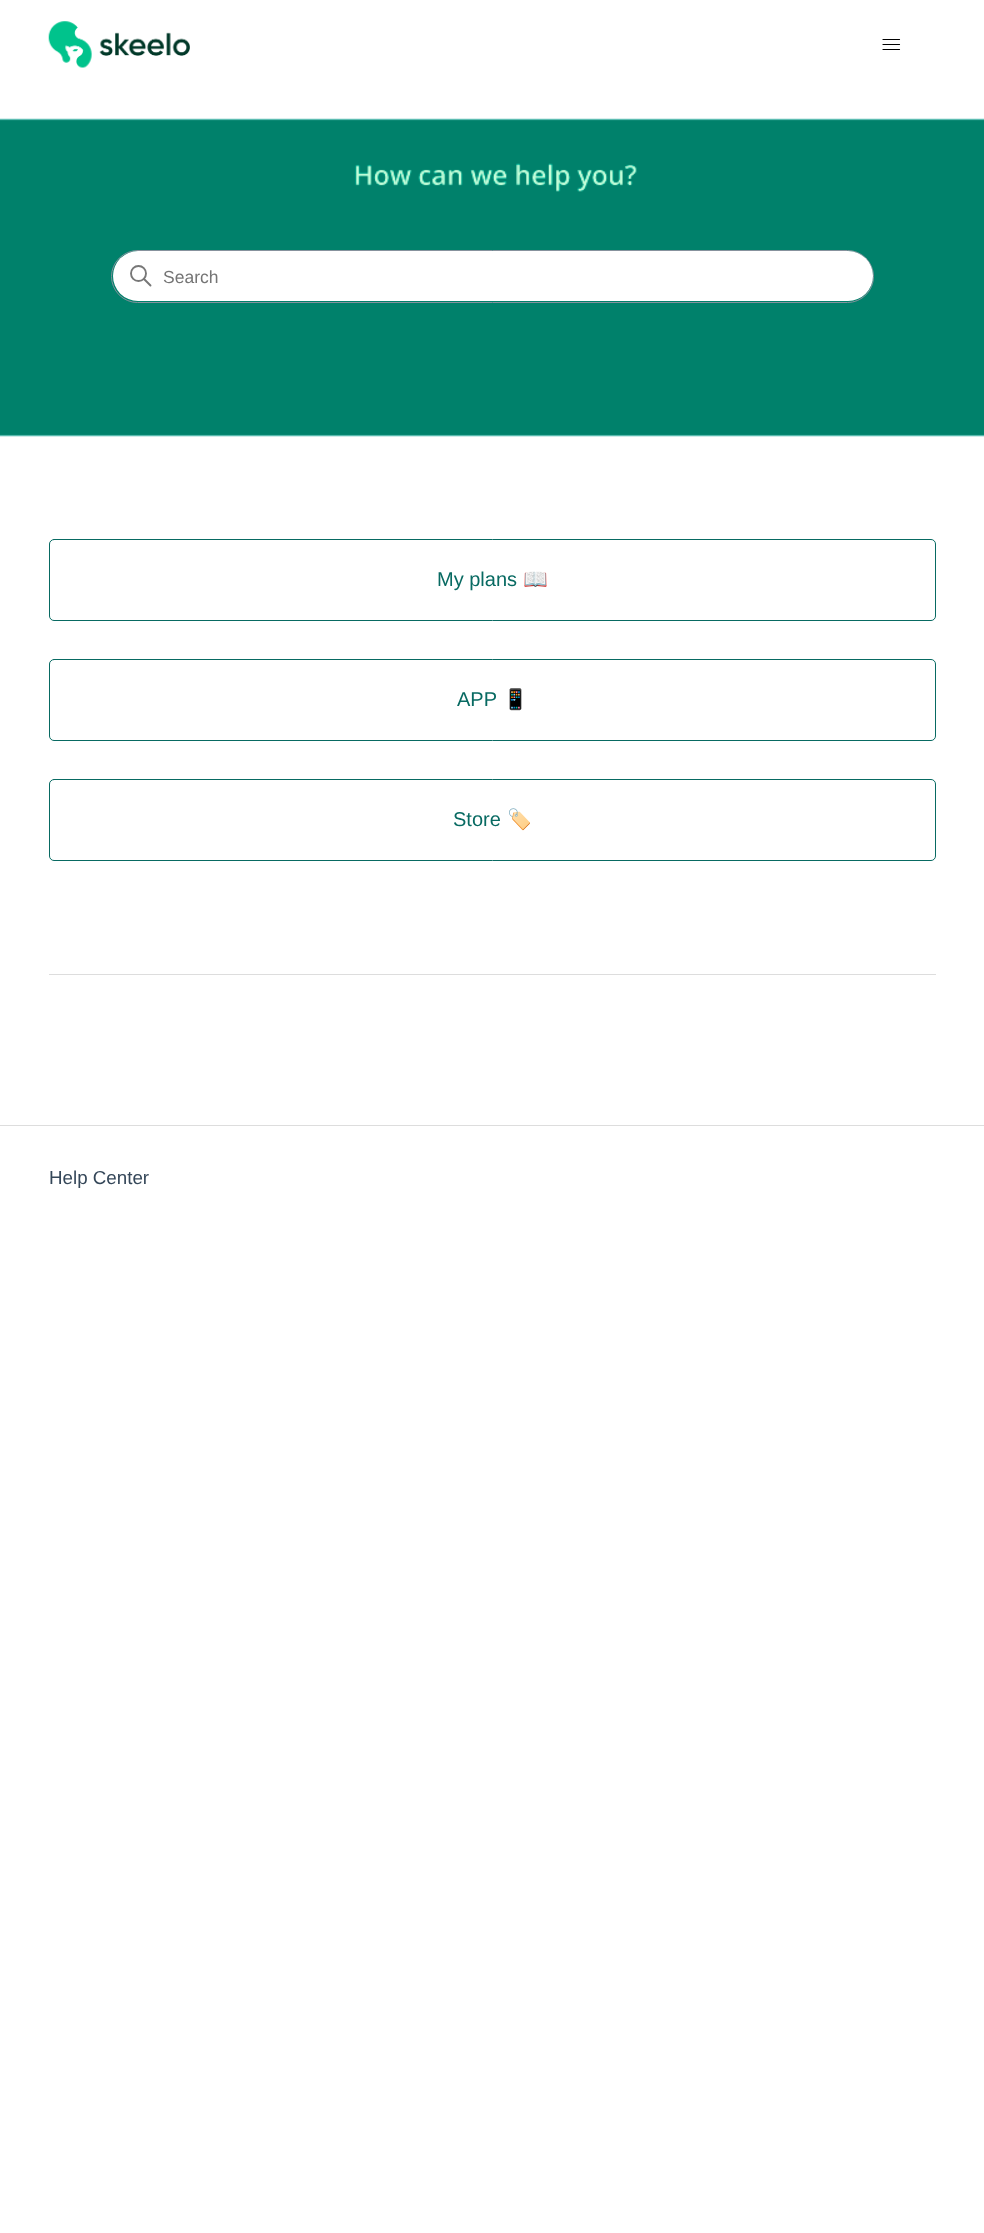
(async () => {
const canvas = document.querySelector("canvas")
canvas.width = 984
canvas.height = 2233
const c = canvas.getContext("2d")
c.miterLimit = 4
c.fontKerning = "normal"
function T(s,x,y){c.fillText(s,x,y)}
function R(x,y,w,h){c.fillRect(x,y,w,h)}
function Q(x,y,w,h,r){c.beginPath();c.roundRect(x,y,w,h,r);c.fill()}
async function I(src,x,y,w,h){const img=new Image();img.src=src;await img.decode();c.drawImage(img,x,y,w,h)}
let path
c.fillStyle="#fff"
R(0,0,984,2233)
await I("1.png",48,21,142,47)
path = new Path2D("M883 39.5h16.5m-16.5 5h16.5m-16.5 5h16.5")
c.strokeStyle="#000"
c.lineWidth=1.2
c.lineCap="round"
c.stroke(path)
await I("2.png",0,118,984,319)
c.beginPath()
c.roundRect(111.5,250.5,762,52,26)
c.strokeStyle="#87929d"
c.lineWidth=1
c.stroke()
Q(113,251,760,50,25)
c.beginPath()
c.arc(138.5,273.5,7.5,0,7)
c.strokeStyle="#777"
c.lineWidth=1.9
c.stroke()
path = new Path2D("M150.5 285.5l-6.5-6.5")
c.stroke(path)
c.font="17.5px Liberation Sans"
c.fillStyle="#757575"
T("Search",163,283)
c.beginPath()
c.roundRect(49.5,539.5,886,81,4.5)
c.strokeStyle="#086a62"
c.lineWidth=1
c.stroke()
c.font="20px Liberation Sans"
c.fillStyle="#086a62"
T("My plans",437,586)
c.font="20px Noto Color Emoji"
T("📖",523,586)
c.beginPath()
c.roundRect(49.5,659.5,886,81,4.5)
c.stroke()
c.font="20px Liberation Sans"
T("APP",457,706)
c.font="20px Noto Color Emoji"
T("📱",503,706)
c.beginPath()
c.roundRect(49.5,779.5,886,81,4.5)
c.stroke()
c.font="20px Liberation Sans"
T("Store",453,826)
c.font="20px Noto Color Emoji"
T("🏷️",507,826)
c.fillStyle="#ddd"
R(49,974,887,1)
R(0,1125,984,1)
c.font="18.75px Liberation Sans"
c.fillStyle="#354759"
T("Help Center",49,1184)
})()
